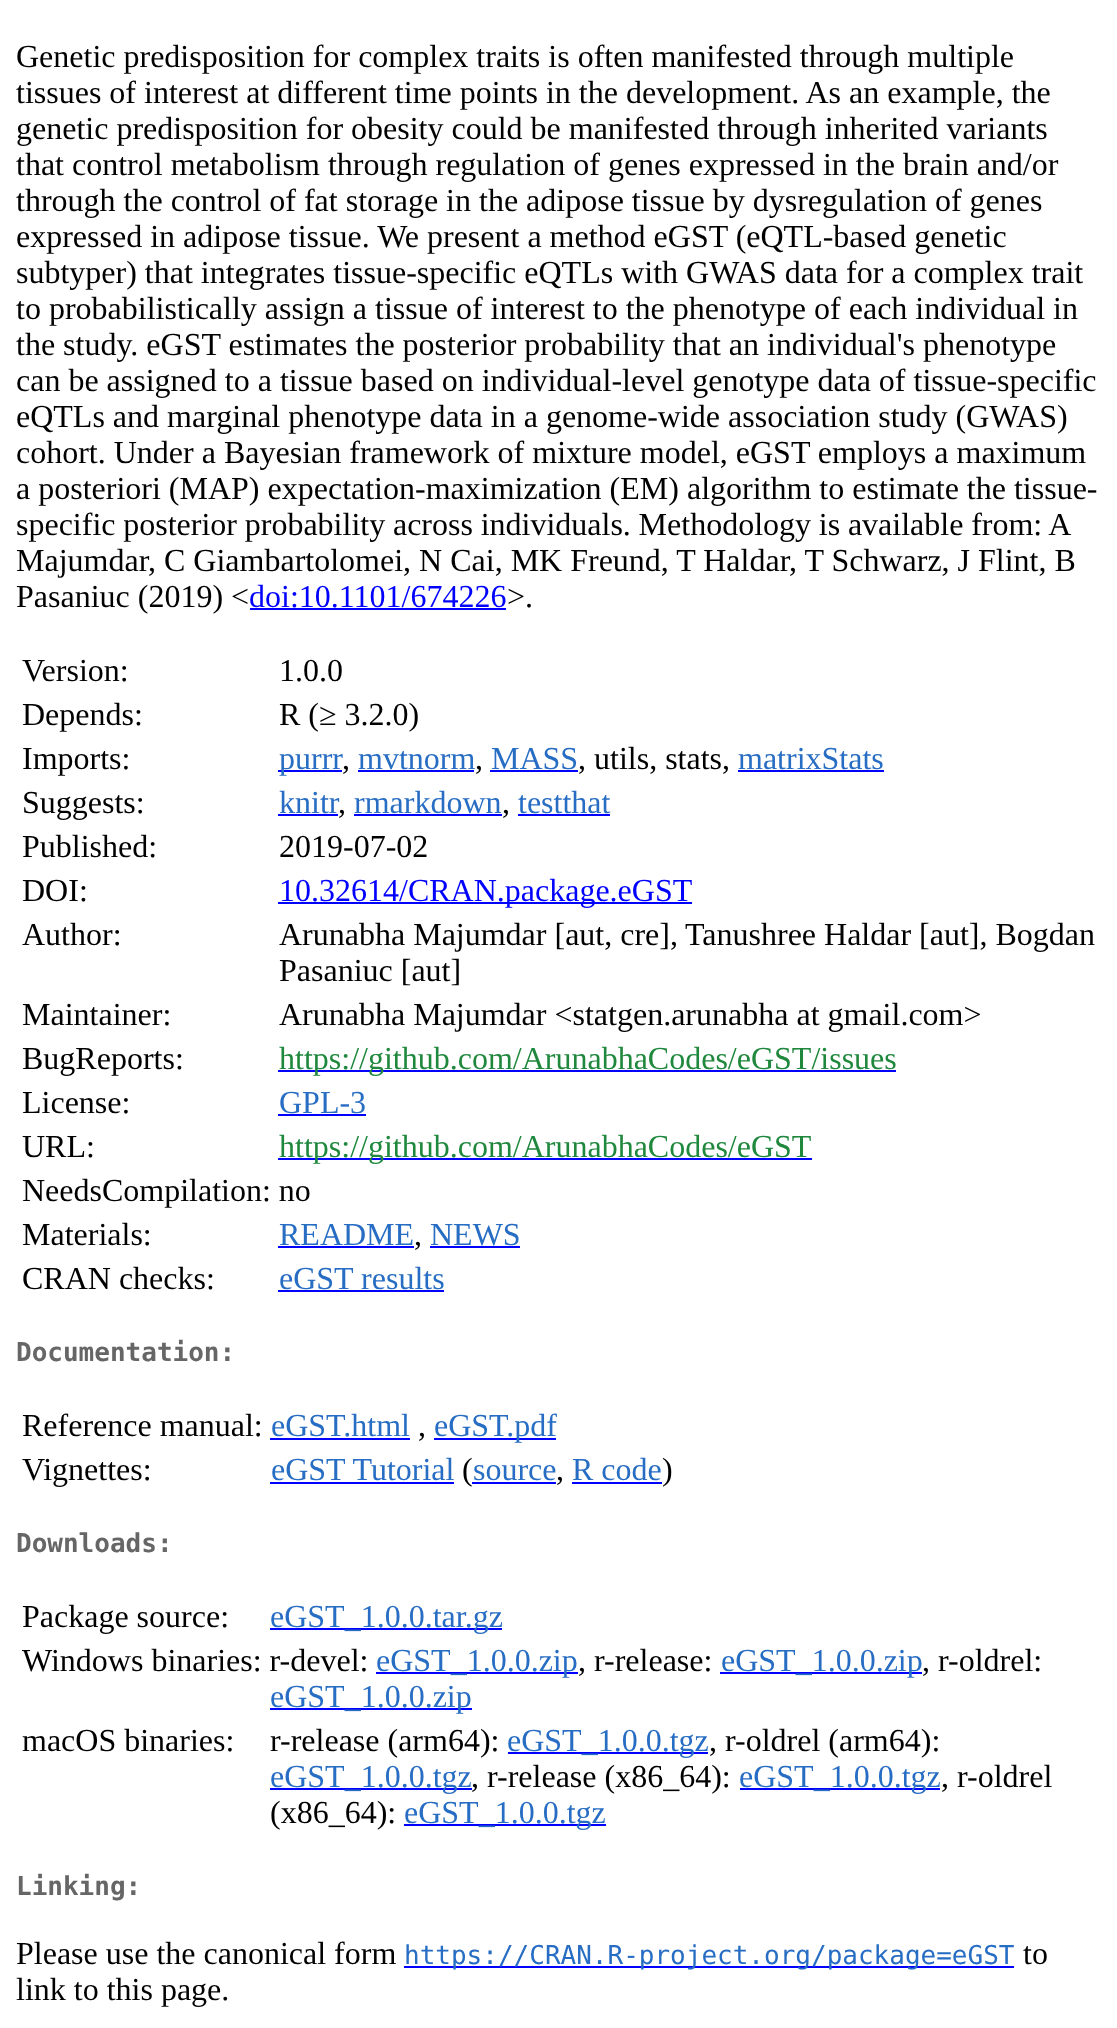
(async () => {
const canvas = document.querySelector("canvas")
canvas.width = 1117
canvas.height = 2028
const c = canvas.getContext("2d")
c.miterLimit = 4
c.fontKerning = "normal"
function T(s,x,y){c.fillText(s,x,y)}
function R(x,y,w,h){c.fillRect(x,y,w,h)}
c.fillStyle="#fff"
R(0,0,1117,2028)
c.font="32px Liberation Serif"
c.fillStyle="#000"
T("Genetic predisposition for complex traits is often manifested through multiple",16,67)
T("tissues of interest at different time points in the development. As an example, the",16,103)
T("genetic predisposition for obesity could be manifested through inherited variants",16,139)
T("that control metabolism through regulation of genes expressed in the brain and/or",16,175)
T("through the control of fat storage in the adipose tissue by dysregulation of genes",16,211)
T("expressed in adipose tissue. We present a method eGST (eQTL-based genetic",16,247)
T("subtyper) that integrates tissue-specific eQTLs with GWAS data for a complex trait",16,283)
T("to probabilistically assign a tissue of interest to the phenotype of each individual in",16,319)
T("the study. eGST estimates the posterior probability that an individual's phenotype",16,355)
T("can be assigned to a tissue based on individual-level genotype data of tissue-specific",16,391)
T("eQTLs and marginal phenotype data in a genome-wide association study (GWAS)",16,427)
T("cohort. Under a Bayesian framework of mixture model, eGST employs a maximum",16,463)
T("a posteriori (MAP) expectation-maximization (EM) algorithm to estimate the tissue-",16,499)
c.wordSpacing="-0.25px"
T("specific posterior probability across individuals. Methodology is available from: A",16,535)
c.wordSpacing="0px"
T("Majumdar, C Giambartolomei, N Cai, MK Freund, T Haldar, T Schwarz, J Flint, B",16,571)
T("Pasaniuc (2019) <",16,607)
c.fillStyle="#00f"
T("doi:10.1101/674226",249,607)
R(250,608,256,2)
c.fillStyle="#000"
T(">.",507,607)
T("Version:",22,681)
T("1.0.0",279,681)
T("Depends:",22,725)
T("R (≥ 3.2.0)",279,725)
T("Imports:",22,769)
c.fillStyle="#00f"
R(278,770,64,2)
c.fillStyle="#276dc3"
T("purrr",279,769)
c.fillStyle="#000"
T(",",342,769)
c.fillStyle="#276dc3"
T("mvtnorm",358,769)
c.fillStyle="#00f"
R(358,770,116,2)
c.fillStyle="#000"
T(",",475,769)
c.fillStyle="#276dc3"
T("MASS",491,769)
c.fillStyle="#00f"
R(490,770,88,2)
c.fillStyle="#000"
T(", utils, stats,",578,769)
c.fillStyle="#276dc3"
T("matrixStats",738,769)
c.fillStyle="#00f"
R(738,770,146,2)
c.fillStyle="#000"
T("Suggests:",22,813)
c.fillStyle="#276dc3"
T("knitr",279,813)
c.fillStyle="#00f"
R(278,814,60,2)
c.fillStyle="#000"
T(",",338,813)
c.fillStyle="#276dc3"
T("rmarkdown",354,813)
c.fillStyle="#00f"
R(354,814,148,2)
c.fillStyle="#000"
T(",",502,813)
c.fillStyle="#276dc3"
T("testthat",518,813)
c.fillStyle="#00f"
R(518,814,92,2)
c.fillStyle="#000"
T("Published:",22,857)
T("2019-07-02",279,857)
T("DOI:",22,901)
c.fillStyle="#00f"
R(278,902,414,2)
T("10.32614/CRAN.package.eGST",279,901)
c.fillStyle="#000"
T("Author:",22,945)
T("Arunabha Majumdar [aut, cre],",279,945)
T("Tanushree Haldar [aut], Bogdan",685,945)
T("Pasaniuc [aut]",279,981)
T("Maintainer:",22,1025)
T("Arunabha Majumdar <statgen.arunabha at gmail.com>",279,1025)
T("BugReports:",22,1069)
c.fillStyle="#00f"
R(278,1070,618,2)
c.fillStyle="#1f883d"
T("https://github.com/ArunabhaCodes/eGST/issues",279,1069)
c.fillStyle="#000"
T("License:",22,1113)
c.fillStyle="#276dc3"
T("GPL-3",279,1113)
c.fillStyle="#00f"
R(278,1114,88,2)
c.fillStyle="#000"
T("URL:",22,1157)
c.fillStyle="#00f"
R(278,1158,534,2)
c.fillStyle="#1f883d"
T("https://github.com/ArunabhaCodes/eGST",279,1157)
c.fillStyle="#000"
T("NeedsCompilation: no",22,1201)
T("Materials:",22,1245)
c.fillStyle="#276dc3"
T("README",279,1245)
c.fillStyle="#00f"
R(278,1246,136,2)
c.fillStyle="#000"
T(",",414,1245)
c.fillStyle="#276dc3"
T("NEWS",430,1245)
c.fillStyle="#00f"
R(430,1246,90,2)
c.fillStyle="#000"
T("CRAN checks:",22,1289)
c.fillStyle="#276dc3"
T("eGST results",279,1289)
c.fillStyle="#00f"
R(278,1290,166,2)
c.font="bold 26px DejaVu Sans Mono"
c.fillStyle="#666"
T("Documentation:",16,1361)
c.font="32px Liberation Serif"
c.fillStyle="#000"
T("Reference manual:",22,1436)
c.fillStyle="#276dc3"
T("eGST.html",271,1436)
c.fillStyle="#00f"
R(270,1438,140,2)
c.fillStyle="#000"
T(",",418,1436)
c.fillStyle="#00f"
R(434,1438,122,2)
c.fillStyle="#276dc3"
T("eGST.pdf",434,1436)
c.fillStyle="#000"
T("Vignettes:",22,1480)
c.fillStyle="#276dc3"
T("eGST Tutorial",271,1480)
c.fillStyle="#00f"
R(270,1482,184,2)
c.fillStyle="#000"
T("(",462,1480)
c.fillStyle="#276dc3"
T("source",473,1480)
c.fillStyle="#00f"
R(472,1482,84,2)
c.fillStyle="#000"
T(",",556,1480)
c.fillStyle="#276dc3"
T("R code",572,1480)
c.fillStyle="#00f"
R(572,1482,90,2)
c.fillStyle="#000"
T(")",662,1480)
c.font="bold 26px DejaVu Sans Mono"
c.fillStyle="#666"
T("Downloads:",16,1552)
c.font="32px Liberation Serif"
c.fillStyle="#000"
T("Package source:",22,1627)
c.fillStyle="#00f"
R(270,1628,232,2)
c.fillStyle="#276dc3"
T("eGST_1.0.0.tar.gz",270,1627)
c.fillStyle="#000"
T("Windows binaries: r-devel:",22,1671)
c.fillStyle="#00f"
R(376,1672,202,2)
c.fillStyle="#276dc3"
T("eGST_1.0.0.zip",376,1671)
c.fillStyle="#000"
T(", r-release:",578,1671)
c.fillStyle="#00f"
R(720,1672,202,2)
c.fillStyle="#276dc3"
T("eGST_1.0.0.zip",721,1671)
c.fillStyle="#000"
T(", r-oldrel:",922,1671)
c.fillStyle="#00f"
R(270,1708,202,2)
c.fillStyle="#276dc3"
T("eGST_1.0.0.zip",270,1707)
c.fillStyle="#000"
T("macOS binaries:",22,1751)
T("r-release (arm64):",270,1751)
c.fillStyle="#00f"
R(508,1752,200,2)
c.fillStyle="#276dc3"
T("eGST_1.0.0.tgz",507,1751)
c.fillStyle="#000"
T(", r-oldrel (arm64):",709,1751)
c.fillStyle="#00f"
R(270,1788,202,2)
c.fillStyle="#276dc3"
T("eGST_1.0.0.tgz",270,1787)
c.fillStyle="#000"
T(", r-release (x86_64):",471,1787)
c.fillStyle="#00f"
R(740,1788,200,2)
c.fillStyle="#276dc3"
T("eGST_1.0.0.tgz",739,1787)
c.fillStyle="#000"
T(", r-oldrel",941,1787)
T("(x86_64):",270,1823)
c.fillStyle="#00f"
R(404,1824,202,2)
c.fillStyle="#276dc3"
T("eGST_1.0.0.tgz",404,1823)
c.font="bold 26px DejaVu Sans Mono"
c.fillStyle="#666"
T("Linking:",16,1895)
c.font="32px Liberation Serif"
c.fillStyle="#000"
T("Please use the canonical form",16,1964)
c.fillStyle="#00f"
R(404,1966,610,2)
c.font="26px DejaVu Sans Mono"
c.fillStyle="#276dc3"
T("https://CRAN.R-project.org/package=eGST",404,1964)
c.font="32px Liberation Serif"
c.fillStyle="#000"
T("to",1023,1964)
T("link to this page.",16,2000)
})()
